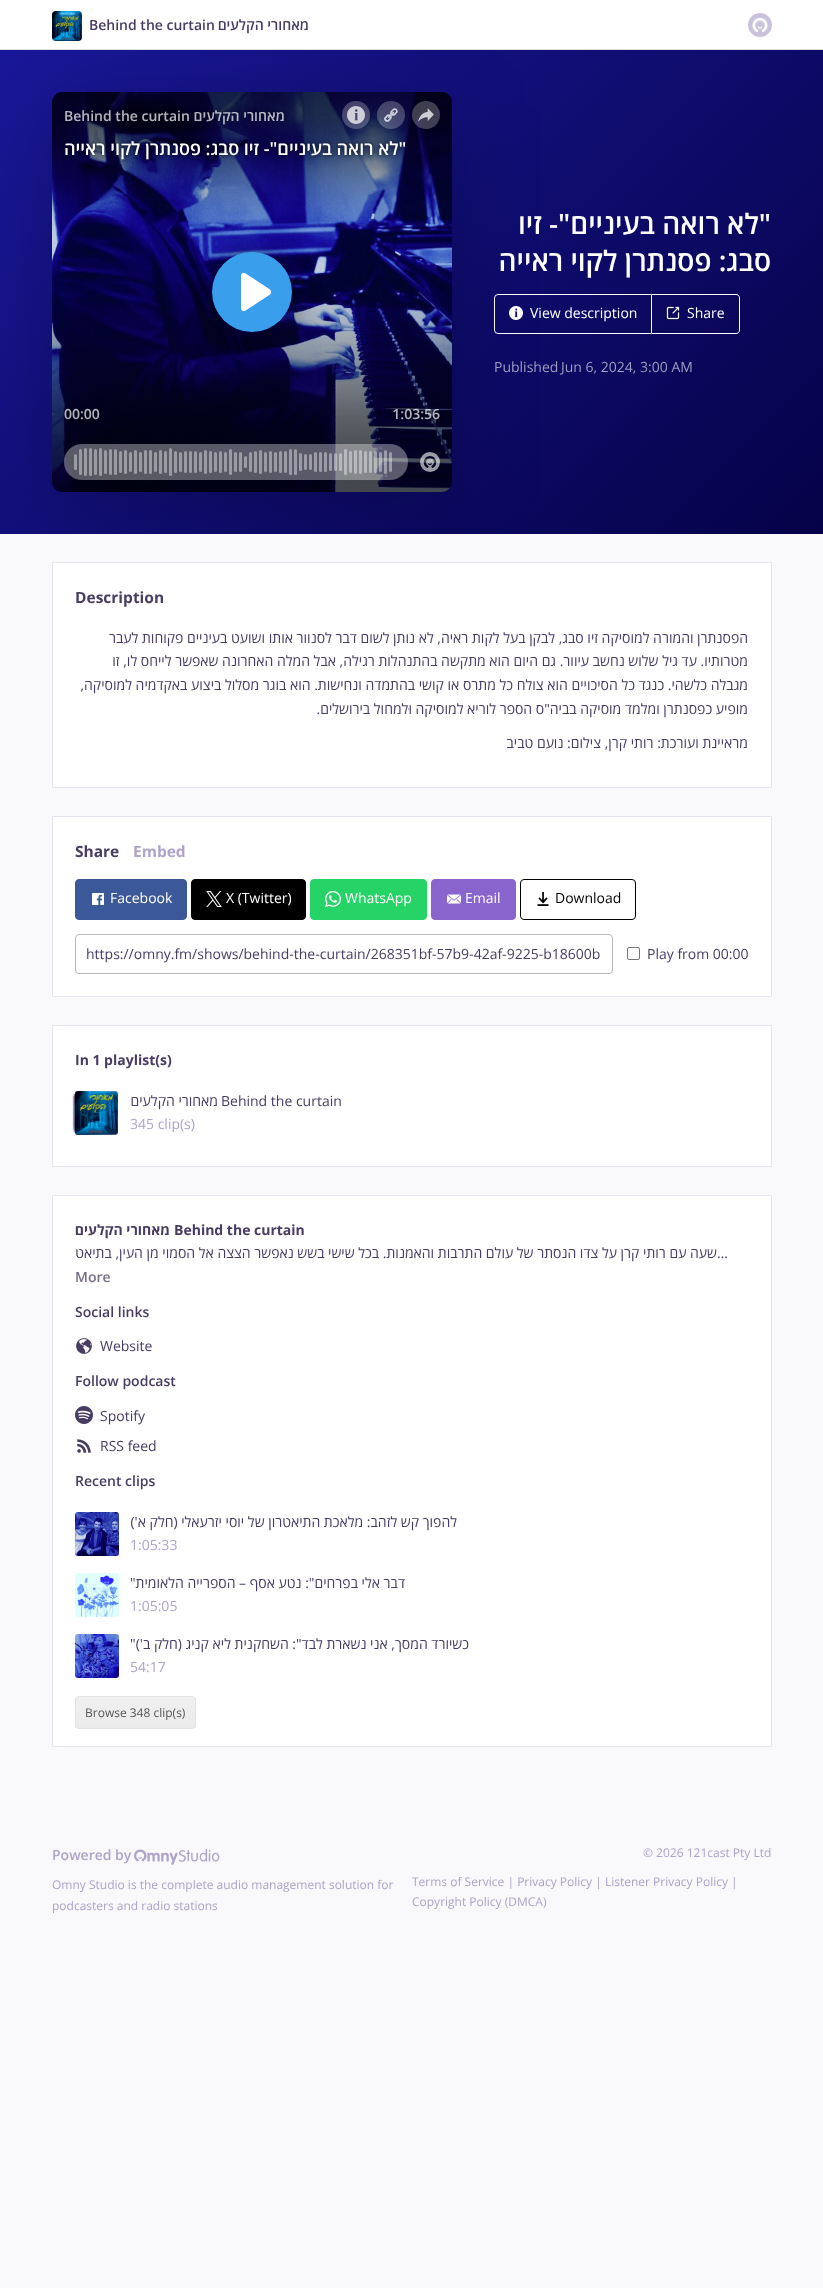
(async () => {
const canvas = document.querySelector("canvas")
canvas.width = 823
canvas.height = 2288
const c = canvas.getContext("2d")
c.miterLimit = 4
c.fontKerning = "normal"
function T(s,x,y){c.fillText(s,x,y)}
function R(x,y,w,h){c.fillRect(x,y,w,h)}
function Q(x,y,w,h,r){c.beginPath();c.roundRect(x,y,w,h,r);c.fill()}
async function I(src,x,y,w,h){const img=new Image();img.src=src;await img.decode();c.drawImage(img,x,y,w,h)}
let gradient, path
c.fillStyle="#f9f8fb"
R(0,0,823,2288)
c.fillStyle="#fff"
R(0,0,823,49)
c.fillStyle="#ddd"
R(0,49,823,1)
await I("1.png",748,13,24,24)
c.direction="rtl"
c.font="600 14px Open Sans"
c.fillStyle="#483c63"
T("מאחורי הקלעים",309,30)
c.direction="ltr"
T("Behind the curtain",89,30)
await I("2.png",52,11,30,30)
gradient = c.createLinearGradient(85,-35,738,619)
gradient.addColorStop(0,"#1a189a")
gradient.addColorStop(1,"#050248")
c.fillStyle = gradient
R(0,50,823,484)
c.direction="rtl"
c.font="600 28px Open Sans"
c.fillStyle="#fff"
T("\"לא רואה בעיניים\"- זיו",771,234)
T("סבג: פסנתרן לקוי ראייה",771,271)
path = new Path2D("M652 294h84c2 0 4 2 4 4v32c0 2-2 4-4 4h-84zm0 1h84c2 0 3 1 3 3v32c0 2-1 3-3 3h-84z")
c.fill(path,"evenodd")
c.direction="ltr"
c.font="14px Open Sans"
T("Share",687,318)
await I("3.png",666,306,14,14)
c.beginPath()
c.roundRect(494.5,294.5,157,39,[3.5,0,0,3.5])
c.strokeStyle="#fff"
c.stroke()
T("View description",530,318)
c.beginPath()
c.rect(52.5,562.5,719,225)
c.fill()
c.strokeStyle="#e6e2ee"
c.stroke()
c.save()
c.beginPath()
c.rect(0,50,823,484)
c.clip()
c.fillStyle="#00000033"
c.filter="blur(42px)"
c.beginPath()
c.roundRect(52,106,400,400,10)
c.fill()
c.filter="none"
c.restore()
await I("4.png",509,306,14,14)
c.fillStyle="#9e9dc1"
T("Jun 6, 2024, 3:00 AM",561,372)
T("Published",494,372)
c.fillStyle="#00000033"
Q(52,92,400,400,10)
await I("5.png",52,92,400,400)
c.font="bold 15.5px Open Sans"
c.fillStyle="#483c63"
T("Description",75,603)
c.direction="rtl"
c.font="14px Open Sans"
T("הפסנתרן והמורה למוסיקה זיו סבג, לבקן בעל לקות ראיה, לא נותן לשום דבר לסנוור אותו ושועט בעיניים פקוחות לעבר",748,643)
T("מטרותיו. עד גיל שלוש נחשב עיוור. גם היום הוא מתקשה בהתנהלות רגילה, אבל המלה האחרונה שאפשר לייחס לו, זו",748,666)
T("מגבלה כלשהי. כנגד כל הסיכויים הוא צולח כל מתרס או קושי בהתמדה ונחישות. הוא בוגר מסלול ביצוע באקדמיה למוסיקה,",748,690)
T("מופיע כפסנתרן ומלמד מוסיקה בביה\"ס הספר לוריא למוסיקה וּלמחול בירושלים.",748,714)
T("מראיינת ועורכת: רותי קרן, צילום: נועם טביב",748,748)
c.fillStyle="#fff"
c.beginPath()
c.rect(52.5,816.5,719,180)
c.fill()
c.stroke()
c.direction="ltr"
c.font="bold 15.5px Open Sans"
c.fillStyle="#aea3c8"
T("Embed",133,857)
c.fillStyle="#483c63"
T("Share",75,857)
c.beginPath()
c.roundRect(520.5,879.5,115,40,3.5)
c.strokeStyle="#000"
c.stroke()
c.font="14px Open Sans"
c.fillStyle="#000"
T("Download",555,903)
await I("6.png",537,892,12,14)
c.fillStyle="#8964cc"
c.beginPath()
c.roundRect(431.5,879.5,84,40,3.5)
c.fill()
c.strokeStyle="#8964cc"
c.stroke()
c.fillStyle="#fff"
T("Email",465,903)
await I("7.png",447,894,14,10)
c.fillStyle="#25d366"
c.beginPath()
c.roundRect(310.5,879.5,116,40,3.5)
c.fill()
c.strokeStyle="#25d366"
c.stroke()
c.fillStyle="#fff"
T("WhatsApp",345,903)
await I("8.png",325,891,16,16)
c.fillStyle="#000"
c.beginPath()
c.roundRect(191.5,879.5,114,40,3.5)
c.fill()
c.strokeStyle="#000"
c.stroke()
c.fillStyle="#fff"
T("X (Twitter)",226,903)
await I("9.png",206,891,16,16)
c.fillStyle="#3b5998"
c.beginPath()
c.roundRect(75.5,879.5,111,40,3.5)
c.fill()
c.strokeStyle="#3b5998"
c.stroke()
c.fillStyle="#fff"
T("Facebook",110,903)
await I("10.png",92,893,12,12)
c.fillStyle="#483c63"
T("Play from 00:00",647,959)
c.beginPath()
c.roundRect(627.5,947.5,12,12,1.5)
c.strokeStyle="#767676"
c.stroke()
c.beginPath()
c.roundRect(75.5,934.5,537,39,3.5)
c.strokeStyle="#b9b9b9"
c.stroke()
T("https://omny.fm/shows/behind-the-curtain/268351bf-57b9-42af-9225-b18600b",86,959)
c.fillStyle="#fff"
c.beginPath()
c.rect(52.5,1025.5,719,141)
c.fill()
c.strokeStyle="#e6e2ee"
c.stroke()
c.font="bold 14px Open Sans"
c.fillStyle="#483c63"
T("In 1 playlist(s)",75,1065)
c.font="14px Open Sans"
T("Behind the curtain",221,1106)
c.direction="rtl"
T("מאחורי הקלעים",218,1106)
c.direction="ltr"
c.fillStyle="#aea3c8"
T("345 clip(s)",130,1129)
c.fillStyle="#efecf4"
Q(73,1095,34,36,2.5)
await I("13.png",72,1095,3,36)
c.fillStyle="#afa1ca80"
Q(74,1093,39,40,2.5)
await I("12.png",73,1093,3,40)
c.fillStyle="#afa1ca"
Q(75,1091,43,44,3)
await I("11.png",75,1091,43,44)
c.fillStyle="#fff"
c.beginPath()
c.rect(52.5,1195.5,719,551)
c.fill()
c.stroke()
c.font="bold 14px Open Sans"
c.fillStyle="#483c63"
T("Behind the curtain",174,1235)
c.direction="rtl"
T("מאחורי הקלעים",170,1235)
c.direction="ltr"
c.font="14px Open Sans"
T("…",717,1258)
c.direction="rtl"
T("שעה עם רותי קרן על צדו הנסתר של עולם התרבות והאמנות. בכל שישי בשש נאפשר הצצה אל הסמוי מן העין, בתיאט",717,1258)
c.direction="ltr"
c.font="600 14px Open Sans"
c.fillStyle="#796e87"
T("More",75,1282)
c.fillStyle="#483c63"
T("Social links",75,1317)
c.font="14px Open Sans"
T("Website",100,1351)
await I("14.png",76,1338,16,16)
c.font="600 14px Open Sans"
T("Follow podcast",75,1386)
c.font="14px Open Sans"
T("Spotify",100,1421)
await I("15.png",75,1406,18,18)
T("RSS feed",100,1451)
await I("16.png",77,1439,14,14)
c.font="600 14px Open Sans"
T("Recent clips",75,1486)
c.direction="rtl"
c.font="14px Open Sans"
T("להפוך קש לזהב: מלאכת התיאטרון של יוסי יזרעאלי (חלק א')",457,1527)
c.direction="ltr"
c.fillStyle="#aea3c8"
T("1:05:33",130,1550)
await I("17.png",75,1512,44,44)
c.direction="rtl"
c.fillStyle="#483c63"
T("דבר אלי בפרחים\": נטע אסף – הספרייה הלאומית",405,1588)
c.direction="ltr"
T("\"",130,1588)
c.fillStyle="#aea3c8"
T("1:05:05",130,1611)
await I("18.png",75,1573,44,44)
c.direction="rtl"
c.fillStyle="#483c63"
T("כשיורד המסך, אני נשארת לבד\": השחקנית ליא קניג (חלק ב')",469,1649)
c.direction="ltr"
T("\"",130,1649)
c.fillStyle="#aea3c8"
T("54:17",130,1672)
await I("19.png",75,1634,44,44)
c.save()
c.beginPath()
c.roundRect(75,1696,121,33,4)
c.clip()
gradient = c.createLinearGradient(136,1697,136,1728)
gradient.addColorStop(0,"#f0f0f0")
gradient.addColorStop(1,"#ebebeb")
c.fillStyle = gradient
R(75,1697,121,31)
c.restore()
c.beginPath()
c.roundRect(75.5,1696.5,120,32,3.5)
c.strokeStyle="#e3e3e3"
c.stroke()
c.font="12px Open Sans"
c.fillStyle="#555"
T("Browse 348 clip(s)",85,1717)
c.fillStyle="#aea3c8"
T("© 2026 121cast Pty Ltd",643,1857)
T("Terms of Service | Privacy Policy | Listener Privacy Policy |",412,1886)
T("Copyright Policy (DMCA)",412,1906)
await I("20.png",134,1849,86,16)
c.font="600 14px Open Sans"
T("Powered by",52,1860)
c.font="12px Open Sans"
T("Omny Studio is the complete audio management solution for",52,1889)
T("podcasters and radio stations",52,1910)
})()
